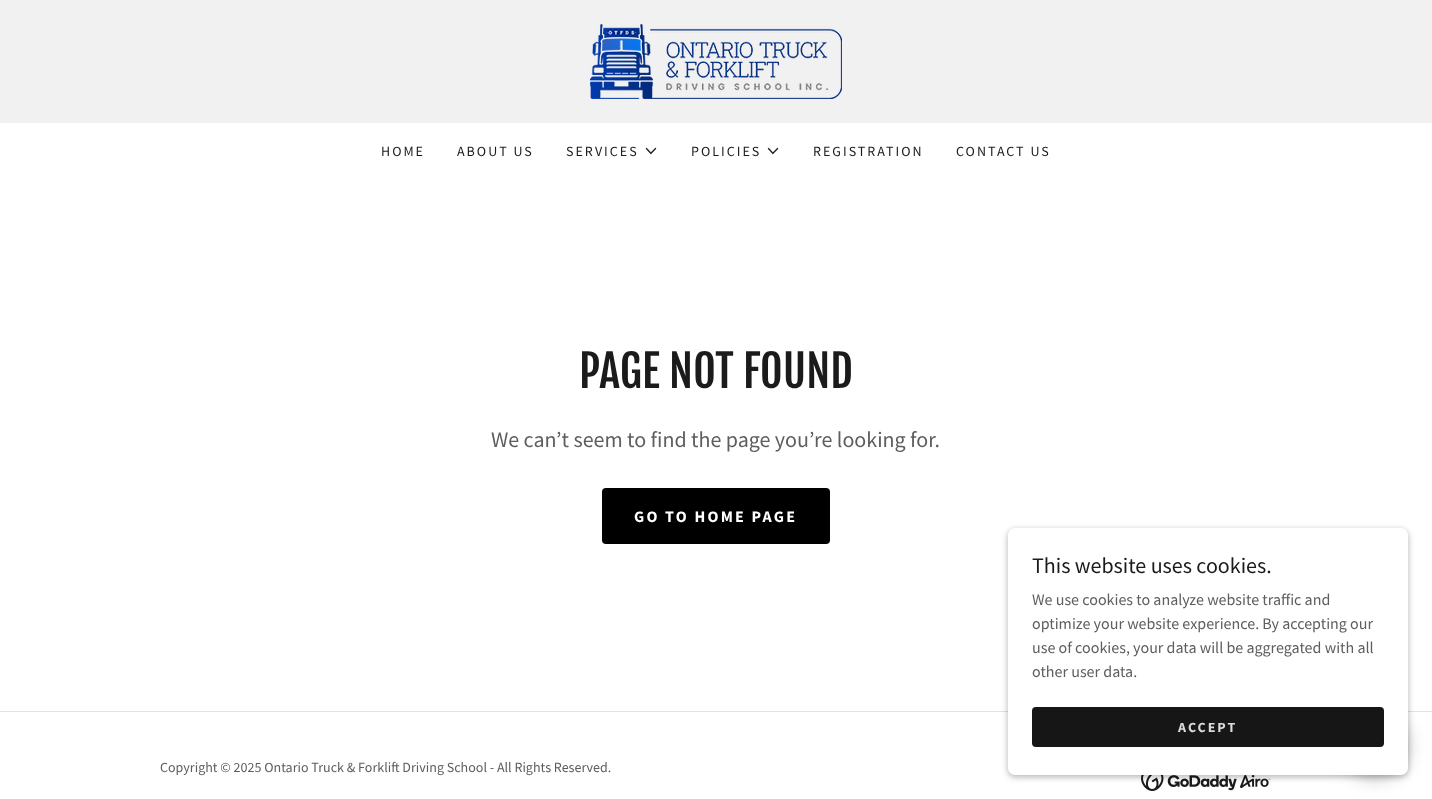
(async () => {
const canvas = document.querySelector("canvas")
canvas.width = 1432
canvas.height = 799
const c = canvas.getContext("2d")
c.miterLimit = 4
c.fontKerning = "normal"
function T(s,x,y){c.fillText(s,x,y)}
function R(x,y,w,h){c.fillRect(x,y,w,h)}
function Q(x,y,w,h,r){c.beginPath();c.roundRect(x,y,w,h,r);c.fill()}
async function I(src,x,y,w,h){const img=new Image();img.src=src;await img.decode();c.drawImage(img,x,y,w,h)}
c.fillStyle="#fff"
R(0,0,1432,799)
c.fillStyle="#f1f1f1"
R(0,0,1432,123)
await I("1.png",590,24,252,75)
c.letterSpacing="2px"
c.font="14px Source Sans Pro"
c.fillStyle="#1b1b1b"
T("HOME",381,156)
T("ABOUT US",457,156)
T("SERVICES",566,156)
await I("2.png",645,147,12,8)
T("POLICIES",691,156)
await I("2.png",767,147,12,8)
T("REGISTRATION",813,156)
T("CONTACT US",956,156)
c.letterSpacing="0px"
c.font="44px Fjalla One"
T("PAGE NOT FOUND",579,388)
c.font="22px Source Sans Pro"
c.fillStyle="#5e5e5e"
T("We can’t seem to find the page you’re looking for.",491,447)
c.fillStyle="#000"
Q(602,488,228,56,4)
c.letterSpacing="2.25px"
c.font="bold 16px Source Sans Pro"
c.fillStyle="#fff"
T("GO TO HOME PAGE",634,522)
c.fillStyle="#e2e2e2"
R(0,711,1432,1)
await I("3.png",1141,775,130,16)
c.fillStyle="#0000004d"
c.filter="blur(3px)"
c.beginPath()
c.roundRect(1008,530,400,247,7)
c.fill()
c.filter="none"
c.fillStyle="#00000040"
c.filter="blur(9px)"
c.beginPath()
c.roundRect(1343,713,65,65,32.5)
c.fill()
c.filter="none"
c.fillStyle="#fff"
Q(1008,528,400,247,7)
c.letterSpacing="0px"
c.font="22px Source Sans Pro"
c.fillStyle="#1b1b1b"
T("This website uses cookies.",1032,573)
c.font="16px Source Sans Pro"
c.fillStyle="#5e5e5e"
T("We use cookies to analyze website traffic and",1032,605)
T("optimize your website experience. By accepting our",1032,629)
T("use of cookies, your data will be aggregated with all",1032,653)
T("other user data.",1032,677)
c.fillStyle="#161616"
Q(1032,707,352,40,4)
c.letterSpacing="2px"
c.font="bold 14px Source Sans Pro"
c.fillStyle="#dbdbdb"
T("ACCEPT",1178,732)
c.letterSpacing="0px"
c.font="14px Source Sans Pro"
c.fillStyle="#5e5e5e"
T("Copyright © 2025 Ontario Truck & Forklift Driving School - All Rights Reserved.",160,772)
})()
